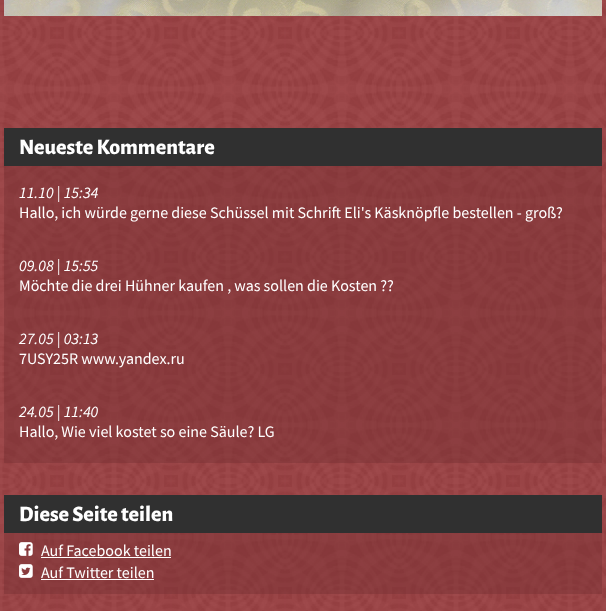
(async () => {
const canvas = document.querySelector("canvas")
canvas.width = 606
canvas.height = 611
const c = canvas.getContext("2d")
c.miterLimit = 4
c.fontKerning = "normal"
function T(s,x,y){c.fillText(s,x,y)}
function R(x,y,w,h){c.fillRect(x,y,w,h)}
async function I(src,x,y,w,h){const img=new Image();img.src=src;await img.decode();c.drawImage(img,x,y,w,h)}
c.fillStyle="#aa4043"
R(0,0,606,611)
await I("1.png",0,0,606,611)
await I("2.png",4,0,598,16)
c.fillStyle="#303030"
R(4,128,598,38)
c.font="800 22px Alegreya Sans"
c.fillStyle="#fff"
T("Neueste Kommentare",19,154)
c.fillStyle="#722f3166"
R(4,166,598,297)
c.font="italic 16px Source Sans Pro"
c.fillStyle="#fff"
T("11.10 | 15:34",19,198)
c.font="16px Source Sans Pro"
T("Hallo, ich würde gerne diese Schüssel mit Schrift Eli's Käsknöpfle bestellen - groß?",19,218)
c.font="italic 16px Source Sans Pro"
T("09.08 | 15:55",19,271)
c.font="16px Source Sans Pro"
T("Möchte die drei Hühner kaufen , was sollen die Kosten ??",19,291)
c.font="italic 16px Source Sans Pro"
T("27.05 | 03:13",19,344)
c.font="16px Source Sans Pro"
T("7USY25R www.yandex.ru",19,364)
c.font="italic 16px Source Sans Pro"
T("24.05 | 11:40",19,417)
c.font="16px Source Sans Pro"
T("Hallo, Wie viel kostet so eine Säule? LG",19,437)
c.fillStyle="#303030"
R(4,495,598,38)
c.font="800 22px Alegreya Sans"
c.fillStyle="#fff"
T("Diese Seite teilen",19,521)
c.fillStyle="#722f3166"
R(4,533,598,61)
await I("3.png",19,542,14,14)
c.font="16px Source Sans Pro"
c.fillStyle="#fff"
T("Auf Facebook teilen",41,556)
R(41,557,130,1)
await I("4.png",19,564,14,14)
T("Auf Twitter teilen",41,578)
R(41,579,113,1)
})()
